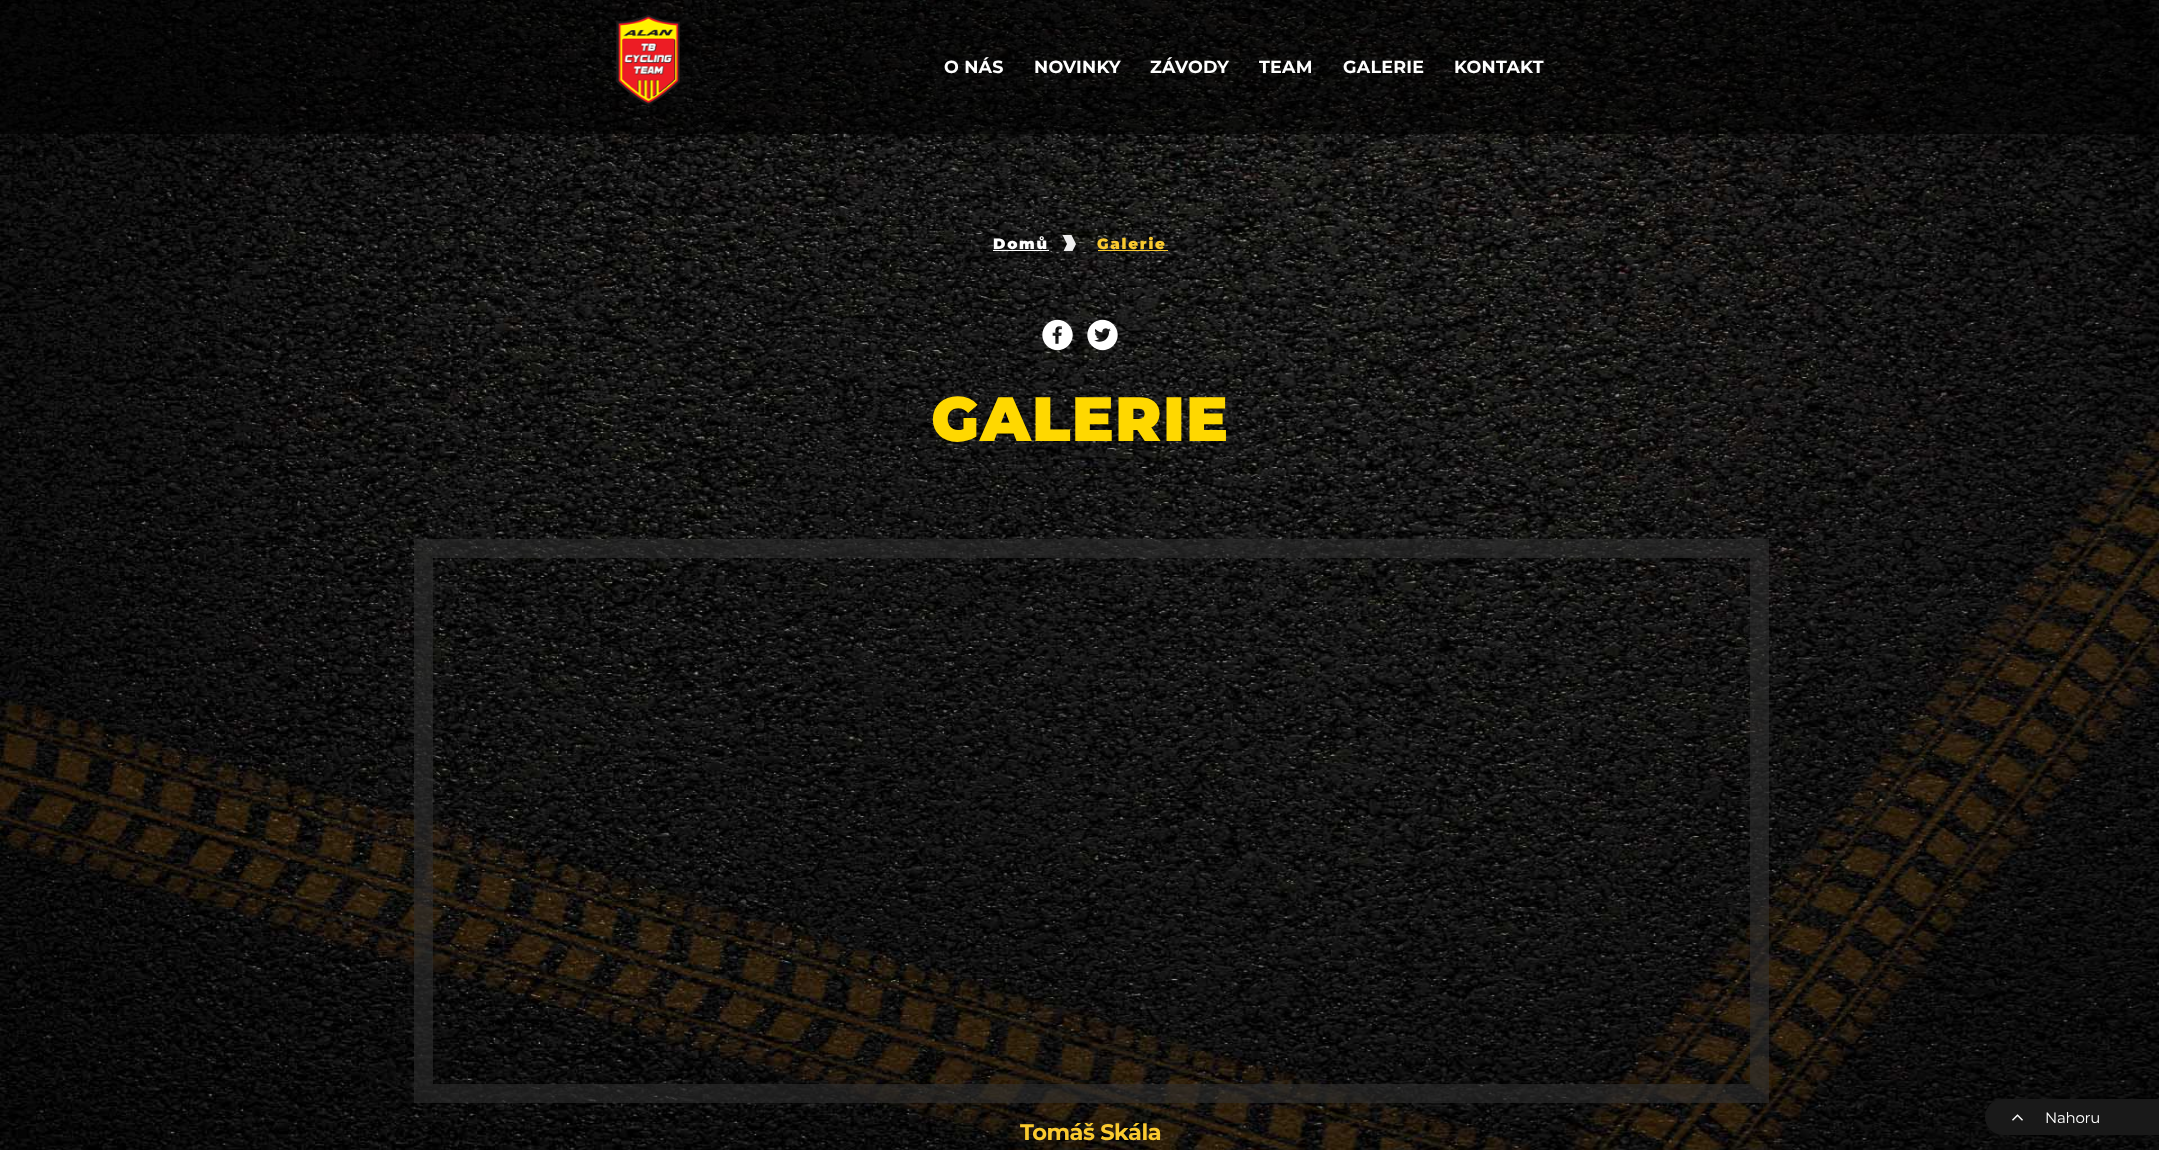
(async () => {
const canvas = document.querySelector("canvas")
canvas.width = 2159
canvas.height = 1150
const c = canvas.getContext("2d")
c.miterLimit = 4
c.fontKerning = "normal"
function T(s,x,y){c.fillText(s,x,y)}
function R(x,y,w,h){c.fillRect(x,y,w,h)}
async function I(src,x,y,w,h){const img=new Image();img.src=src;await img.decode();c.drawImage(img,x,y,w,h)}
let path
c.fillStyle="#fff"
R(0,0,2159,1150)
await I("1.png",0,0,2159,1150)
c.fillStyle="#00000094"
R(0,0,2159,134)
await I("2.png",616,15,64,90)
c.letterSpacing="0.25px"
c.font="bold 17.5px Montserrat"
c.fillStyle="#fff"
T("O NÁS",944,73)
T("NOVINKY",1034,73)
T("ZÁVODY",1150,73)
T("TEAM",1259,73)
T("GALERIE",1343,73)
T("KONTAKT",1454,73)
c.save()
c.beginPath()
c.rect(1030,235,46,16)
c.clip()
c.fillStyle="#eee"
path = new Path2D("M1076 244l-37 74h-9l37-74l-37-74h9z")
c.fill(path,"evenodd")
c.restore()
c.letterSpacing="1.75px"
c.font="900 15px Montserrat"
T("Domů",993,249)
R(993,250,56,1)
c.fillStyle="#faca2f"
T("Galerie",1097,249)
R(1098,250,70,1)
await I("3.png",1042,319,31,32)
await I("4.png",1087,319,31,32)
c.letterSpacing="1.25px"
c.font="900 62.5px Montserrat"
c.fillStyle="#ffd800"
T("GALERIE",931,441)
c.strokeStyle="#31313199"
c.lineWidth=19
c.strokeRect(423.5,548.5,1336,545)
c.letterSpacing="-0.5px"
c.font="bold 22.5px Montserrat"
c.fillStyle="#faca2f"
T("Tomáš Skála",1020,1140)
c.fillStyle="#191919"
path = new Path2D("M2003 1099h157v36h-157c-10 0-18-8-18-18c0-10 8-18 18-18z")
c.fill(path)
await I("5.png",2012,1114,11,7)
c.letterSpacing="-0.25px"
c.font="15px Montserrat"
c.fillStyle="#fff"
T("Nahoru",2045,1123)
})()
